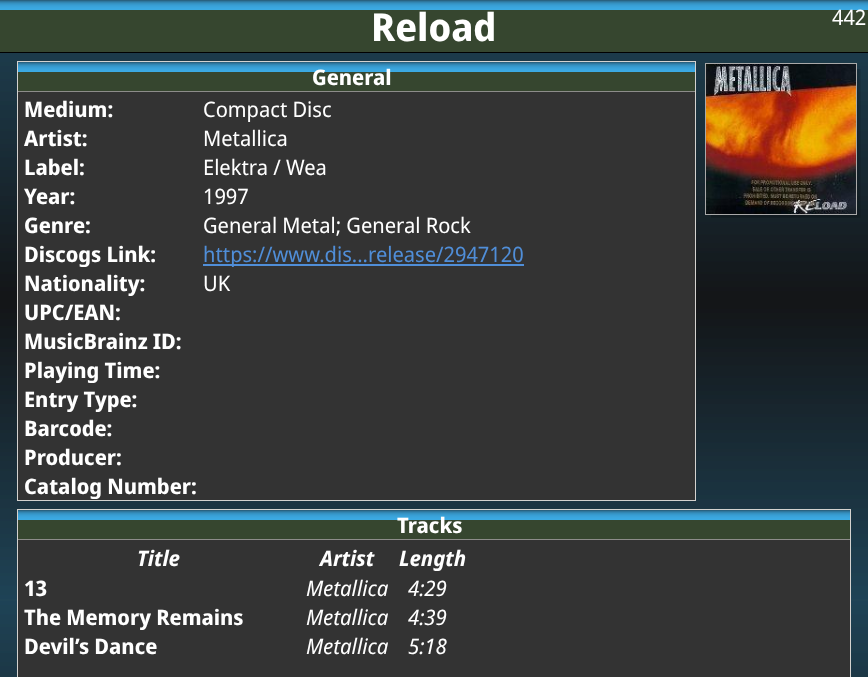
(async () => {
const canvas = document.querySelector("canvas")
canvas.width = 868
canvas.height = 677
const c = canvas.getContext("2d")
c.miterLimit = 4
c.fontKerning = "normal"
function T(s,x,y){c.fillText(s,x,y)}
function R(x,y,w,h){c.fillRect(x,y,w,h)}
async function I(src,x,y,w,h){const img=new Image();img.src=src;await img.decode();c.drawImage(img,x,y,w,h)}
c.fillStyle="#fff"
R(0,0,868,677)
await I("1.png",0,53,868,624)
c.fillStyle="#36462f"
R(0,10,868,42)
await I("2.png",0,0,868,10)
c.fillStyle="#000"
R(0,52,868,1)
c.font="bold 38.5px Noto Sans Display"
c.fillStyle="#fff"
T("Reload",371,41)
c.font="21.3px Noto Sans Display"
T("442",832,25)
c.fillStyle="#333"
R(18,92,677,408)
c.strokeStyle="#d4d2cf"
c.strokeRect(17.5,61.5,678,439)
c.fillStyle="#36462f"
R(18,72,677,19)
await I("3.png",18,62,677,10)
c.fillStyle="#8d8c8a"
R(18,91,677,1)
c.font="bold 21.3px Noto Sans Display"
c.fillStyle="#fff"
T("General",312,85)
T("Medium:",24,117)
c.font="21.3px Noto Sans Display"
T("Compact Disc",203,117)
c.font="bold 21.3px Noto Sans Display"
T("Artist:",24,146)
c.font="21.3px Noto Sans Display"
T("Metallica",203,146)
c.font="bold 21.3px Noto Sans Display"
T("Label:",24,175)
c.font="21.3px Noto Sans Display"
T("Elektra / Wea",203,175)
c.font="bold 21.3px Noto Sans Display"
T("Year:",24,204)
c.font="21.3px Noto Sans Display"
T("1997",203,204)
c.font="bold 21.3px Noto Sans Display"
T("Genre:",24,233)
c.font="21.3px Noto Sans Display"
T("General Metal; General Rock",203,233)
c.font="bold 21.3px Noto Sans Display"
T("Discogs Link:",24,262)
c.fillStyle="#508ed8"
R(203,264,321,2)
c.font="21.3px Noto Sans Display"
T("https://www.dis...release/2947120",203,262)
c.font="bold 21.3px Noto Sans Display"
c.fillStyle="#fff"
T("Nationality:",24,291)
c.font="21.3px Noto Sans Display"
T("UK",203,291)
c.font="bold 21.3px Noto Sans Display"
T("UPC/EAN:",24,320)
T("MusicBrainz ID:",24,349)
T("Playing Time:",24,378)
T("Entry Type:",24,407)
T("Barcode:",24,436)
T("Producer:",24,465)
T("Catalog Number:",24,494)
c.fillStyle="#333"
R(18,540,832,137)
c.strokeRect(17.5,509.5,833,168)
c.fillStyle="#36462f"
R(18,520,832,19)
await I("4.png",18,510,832,10)
c.fillStyle="#8d8c8a"
R(18,539,832,1)
c.fillStyle="#fff"
T("Tracks",397,533)
c.font="italic bold 21.3px Noto Sans Display"
T("Title",137,566)
T("Artist",320,566)
T("Length",399,566)
c.font="bold 21.3px Noto Sans Display"
T("13",24,596)
c.font="italic 21.3px Noto Sans Display"
T("Metallica",306,596)
T("4:29",408,596)
c.font="bold 21.3px Noto Sans Display"
T("The Memory Remains",24,625)
c.font="italic 21.3px Noto Sans Display"
T("Metallica",306,625)
T("4:39",408,625)
c.font="bold 21.3px Noto Sans Display"
T("Devil’s Dance",24,654)
c.font="italic 21.3px Noto Sans Display"
T("Metallica",306,654)
T("5:18",408,654)
await I("5.png",711,69,150,149)
c.strokeStyle="#a9a9a9"
c.strokeRect(705.5,63.5,151,151)
await I("6.png",706,64,150,150)
})()
